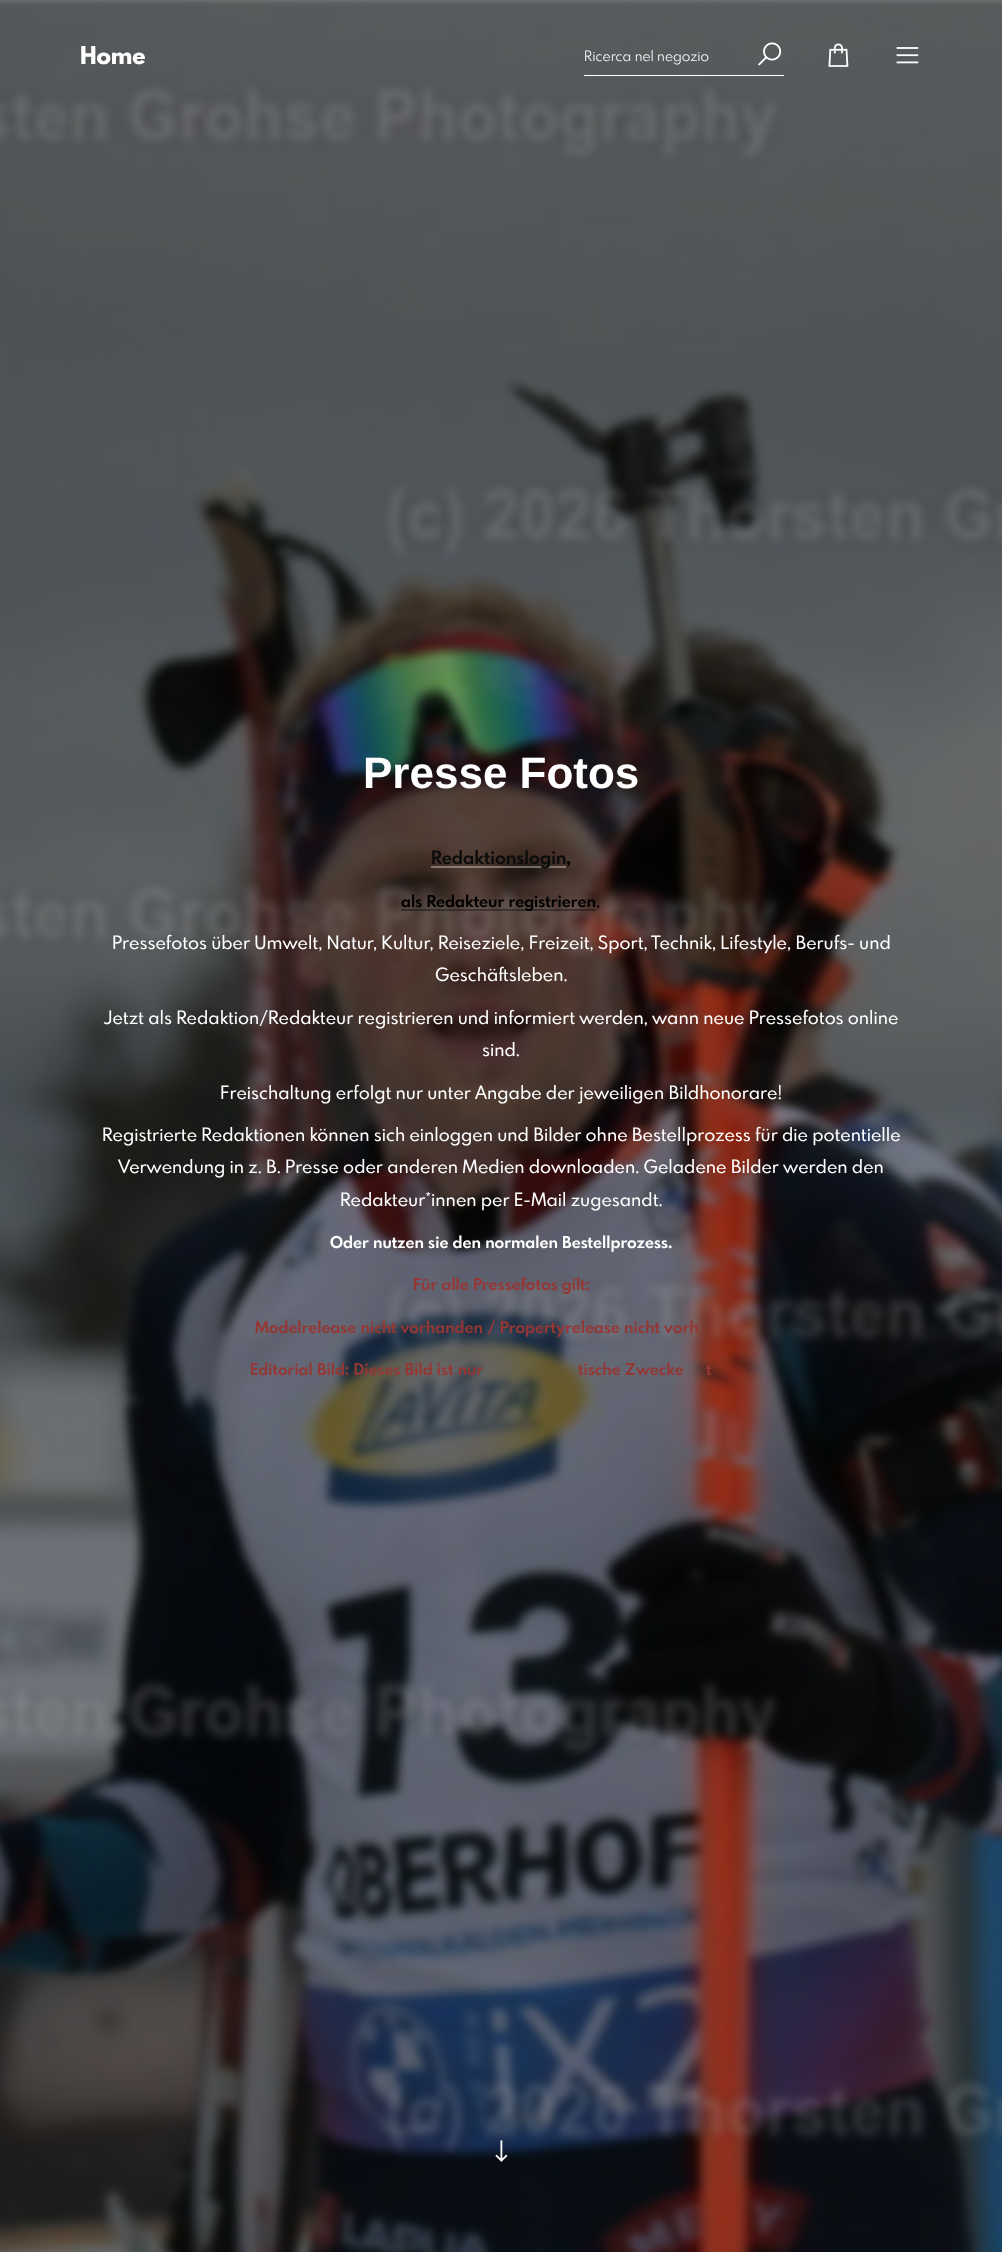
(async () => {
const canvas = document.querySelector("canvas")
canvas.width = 1002
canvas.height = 2252
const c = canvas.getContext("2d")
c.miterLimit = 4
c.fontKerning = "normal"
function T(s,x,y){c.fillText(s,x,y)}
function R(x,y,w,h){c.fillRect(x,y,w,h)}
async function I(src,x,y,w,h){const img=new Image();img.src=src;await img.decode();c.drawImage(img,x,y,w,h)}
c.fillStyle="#fff"
R(0,0,1002,2252)
await I("1.png",0,0,1002,2252)
c.font="800 24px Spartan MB"
T("Home",80,64)
R(584,75,200,1)
c.font="14px Spartan MB"
T("Ricerca nel negozio",584,61)
await I("2.png",758,42,24,24)
await I("3.png",828,43,21,24)
await I("4.png",896,47,23,17)
c.font="bold 44px Liberation Sans"
T("Presse Fotos",363,788)
c.fillStyle="#ffffff59"
R(431,866,135,2)
c.font="bold 18px Spartan MB"
c.fillStyle="#0c0c0c"
T("Redaktionslogin",431,864)
c.fillStyle="#000"
T(",",566,864)
c.fillStyle="#00000059"
R(401,909,195,2)
c.font="bold 16px Spartan MB"
c.fillStyle="#000"
T("als Redakteur registrieren",401,907)
c.font="500 18px Spartan MB"
T(",",596,907)
c.fillStyle="#fff"
T("Pressefotos über Umwelt, Natur, Kultur, Reiseziele, Freizeit, Sport, Technik, Lifestyle, Berufs- und",112,949)
T("Geschäftsleben.",435,981)
T("Jetzt als Redaktion/Redakteur registrieren und informiert werden, wann neue Pressefotos online",104,1024)
T("sind.",482,1056)
T("Freischaltung erfolgt nur unter Angabe der jeweiligen Bildhonorare!",220,1099)
T("Registrierte Redaktionen können sich einloggen und Bilder ohne Bestellprozess für die potentielle",102,1141)
T("Verwendung in z. B. Presse oder anderen Medien downloaden. Geladene Bilder werden den",118,1173)
T("Redakteur*innen per E-Mail zugesandt.",340,1206)
c.font="bold 16px Spartan MB"
T("Oder nutzen sie den normalen Bestellprozess.",330,1248)
c.fillStyle="#953734"
T("Für alle Pressefotos gilt:",413,1290)
T("Modelrelease nicht vorhanden / Propertyrelease nicht vorh",255,1333)
T("Editorial Bild: Dieses Bild ist nur",250,1375)
T("tische Zwecke",578,1375)
T("t",706,1375)
await I("5.png",495,2140,13,22)
})()
